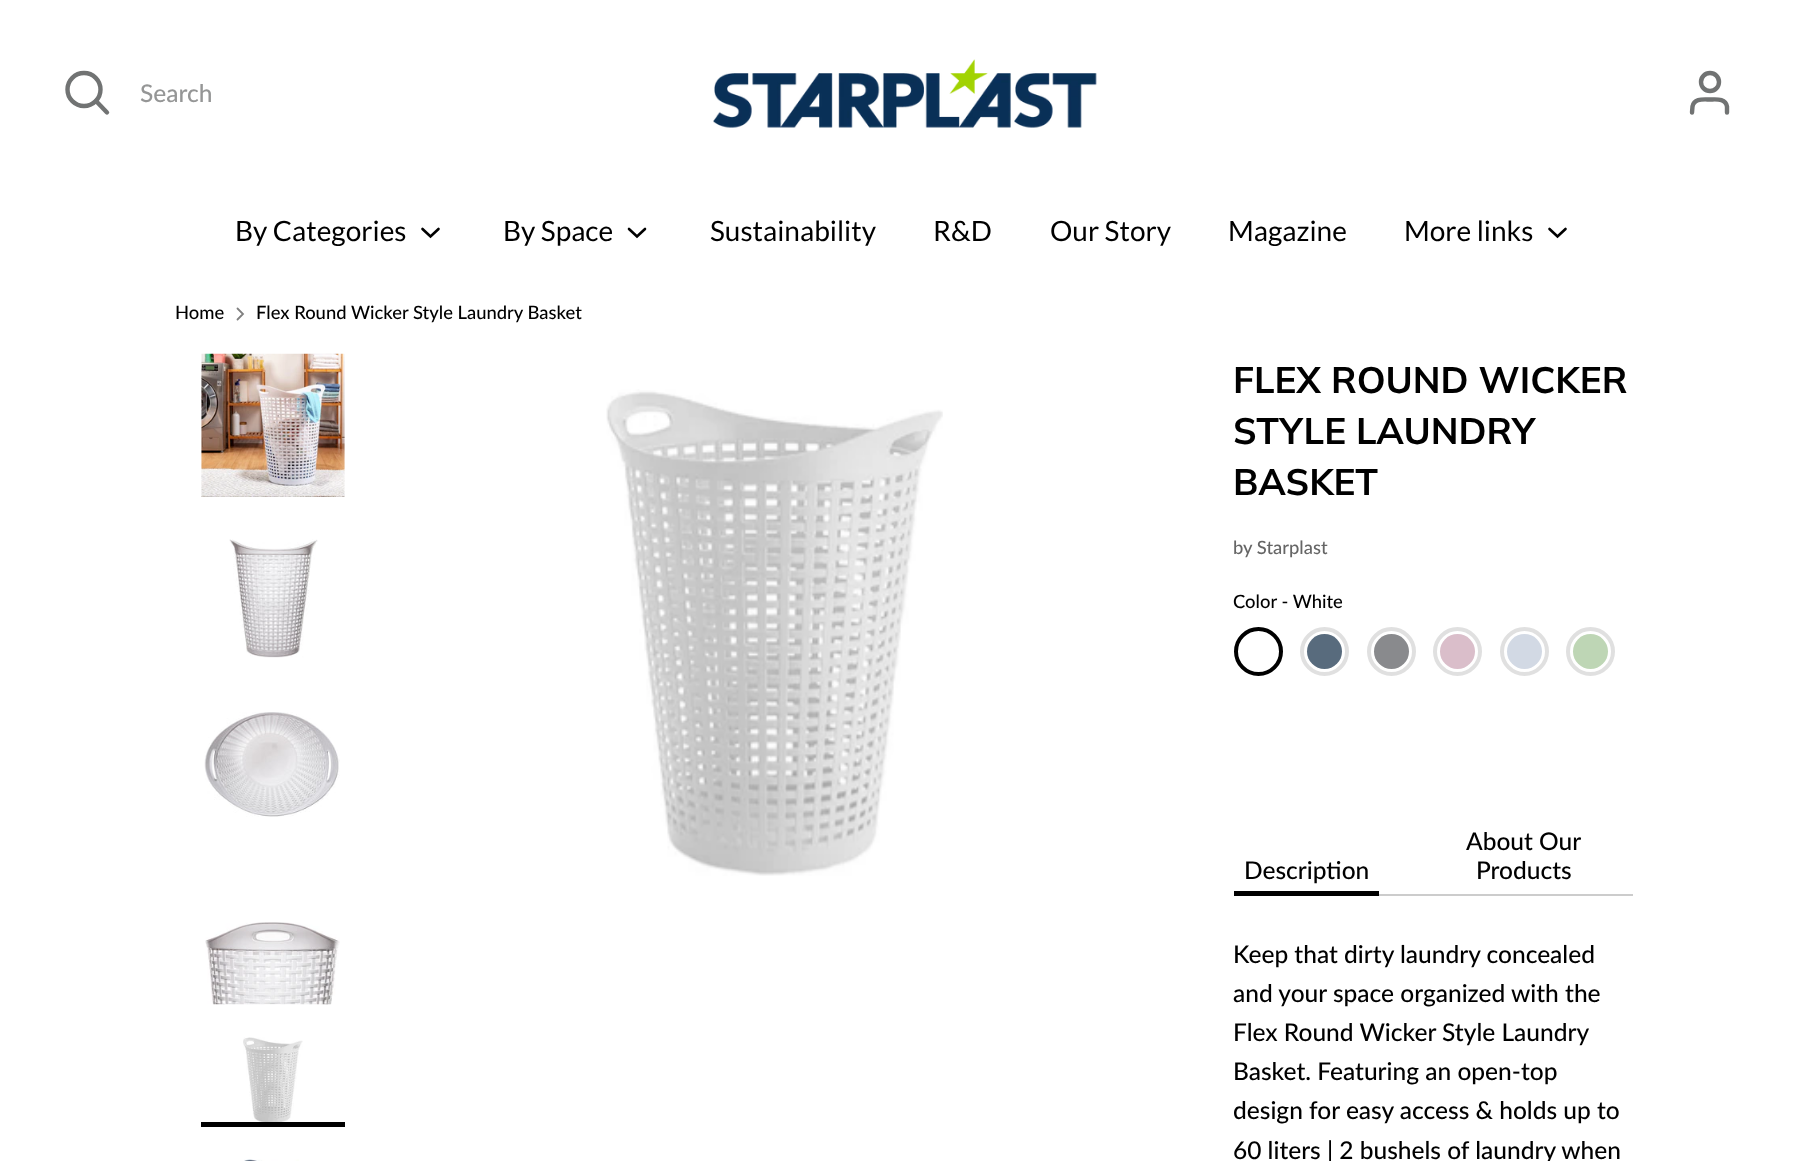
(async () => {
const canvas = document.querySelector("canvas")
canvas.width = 1807
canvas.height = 1161
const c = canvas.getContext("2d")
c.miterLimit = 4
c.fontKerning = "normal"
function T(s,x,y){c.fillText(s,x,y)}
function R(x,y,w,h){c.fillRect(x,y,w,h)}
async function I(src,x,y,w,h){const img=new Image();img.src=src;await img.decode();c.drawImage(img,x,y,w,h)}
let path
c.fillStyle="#fff"
R(0,0,1807,1161)
c.beginPath()
c.arc(84,89.5,16.5,0,7)
c.strokeStyle="#717373"
c.lineWidth=4.4
c.stroke()
path = new Path2D("M107 112.5l-11-11.5")
c.lineCap="round"
c.stroke(path)
c.font="500 24.5px Lato"
c.fillStyle="#959696"
T("Search",140,102)
await I("1.png",713,59,384,69)
path = new Path2D("M1727 112.5v-6c-1.5-8.5-11-7-17-7c-6.5 0-16-1.5-17.5 7l-.5 6")
c.stroke(path)
c.beginPath()
c.arc(1710,82,9,0,7)
c.stroke()
c.font="28px Lato"
c.fillStyle="#000"
T("By Categories",235,241)
path = new Path2D("M422.5 229l8 7.5l8-7.5")
c.strokeStyle="#000"
c.lineWidth=2.6
c.stroke(path)
T("By Space",503,241)
path = new Path2D("M629 229l8 7.5l8-7.5")
c.stroke(path)
T("Sustainability",710,241)
T("R&D",933,241)
T("Our Story",1050,241)
T("Magazine",1228,241)
T("More links",1404,241)
path = new Path2D("M1549.5 229l8 7.5l8-7.5")
c.stroke(path)
c.font="500 18.4px Lato"
T("Home",175,319)
path = new Path2D("M237.5 319.5l5.5-5.5l-5.5-5.5")
c.strokeStyle="#808080"
c.lineWidth=1.8
c.stroke(path)
T("Flex Round Wicker Style Laundry Basket",256,319)
await I("2.png",201,353,144,144)
await I("3.png",229,539,89,119)
await I("4.png",204,712,136,105)
await I("5.png",205,922,135,83)
await I("6.png",243,1037,60,85)
R(201,1122,144,5)
await I("7.png",244,1159,55,2)
await I("8.png",606,389,337,487)
c.font="bold 36.75px Muli"
T("FLEX ROUND WICKER",1233,393)
T("STYLE LAUNDRY",1233,444)
T("BASKET",1233,495)
c.font="500 18.4px Lato"
c.fillStyle="#666"
T("by Starplast",1233,554)
c.fillStyle="#000"
T("Color - White",1233,608)
c.beginPath()
c.arc(1258.5,651.5,22.5,0,7)
c.strokeStyle="#000"
c.lineWidth=4
c.stroke()
c.beginPath()
c.arc(1324.5,651.5,22.5,0,7)
c.strokeStyle="#e0e0e0"
c.stroke()
c.fillStyle="#586b7d"
c.beginPath()
c.arc(1324.5,651.5,17.5,0,7)
c.fill()
c.beginPath()
c.arc(1391.5,651.5,22.5,0,7)
c.stroke()
c.fillStyle="#898a8d"
c.beginPath()
c.arc(1391.5,651.5,17.5,0,7)
c.fill()
c.beginPath()
c.arc(1457.5,651.5,22.5,0,7)
c.stroke()
c.fillStyle="#dabeca"
c.beginPath()
c.arc(1457.5,651.5,17.5,0,7)
c.fill()
c.beginPath()
c.arc(1524.5,651.5,22.5,0,7)
c.stroke()
c.fillStyle="#d2d9e4"
c.beginPath()
c.arc(1524.5,651.5,17.5,0,7)
c.fill()
c.beginPath()
c.arc(1590.5,651.5,22.5,0,7)
c.stroke()
c.fillStyle="#bed6b5"
c.beginPath()
c.arc(1590.5,651.5,17.5,0,7)
c.fill()
c.fillStyle="#ccc"
R(1379,894,254,2)
c.font="500 24.5px Lato"
c.fillStyle="#000"
T("Description",1244,879)
R(1234,891,145,5)
T("About Our",1466,850)
T("Products",1476,879)
T("Keep that dirty laundry concealed",1233,963)
T("and your space organized with the",1233,1002)
T("Flex Round Wicker Style Laundry",1233,1041)
T("Basket. Featuring an open-top",1233,1080)
T("design for easy access & holds up to",1233,1119)
T("60 liters | 2 bushels of laundry when",1233,1159)
})()
